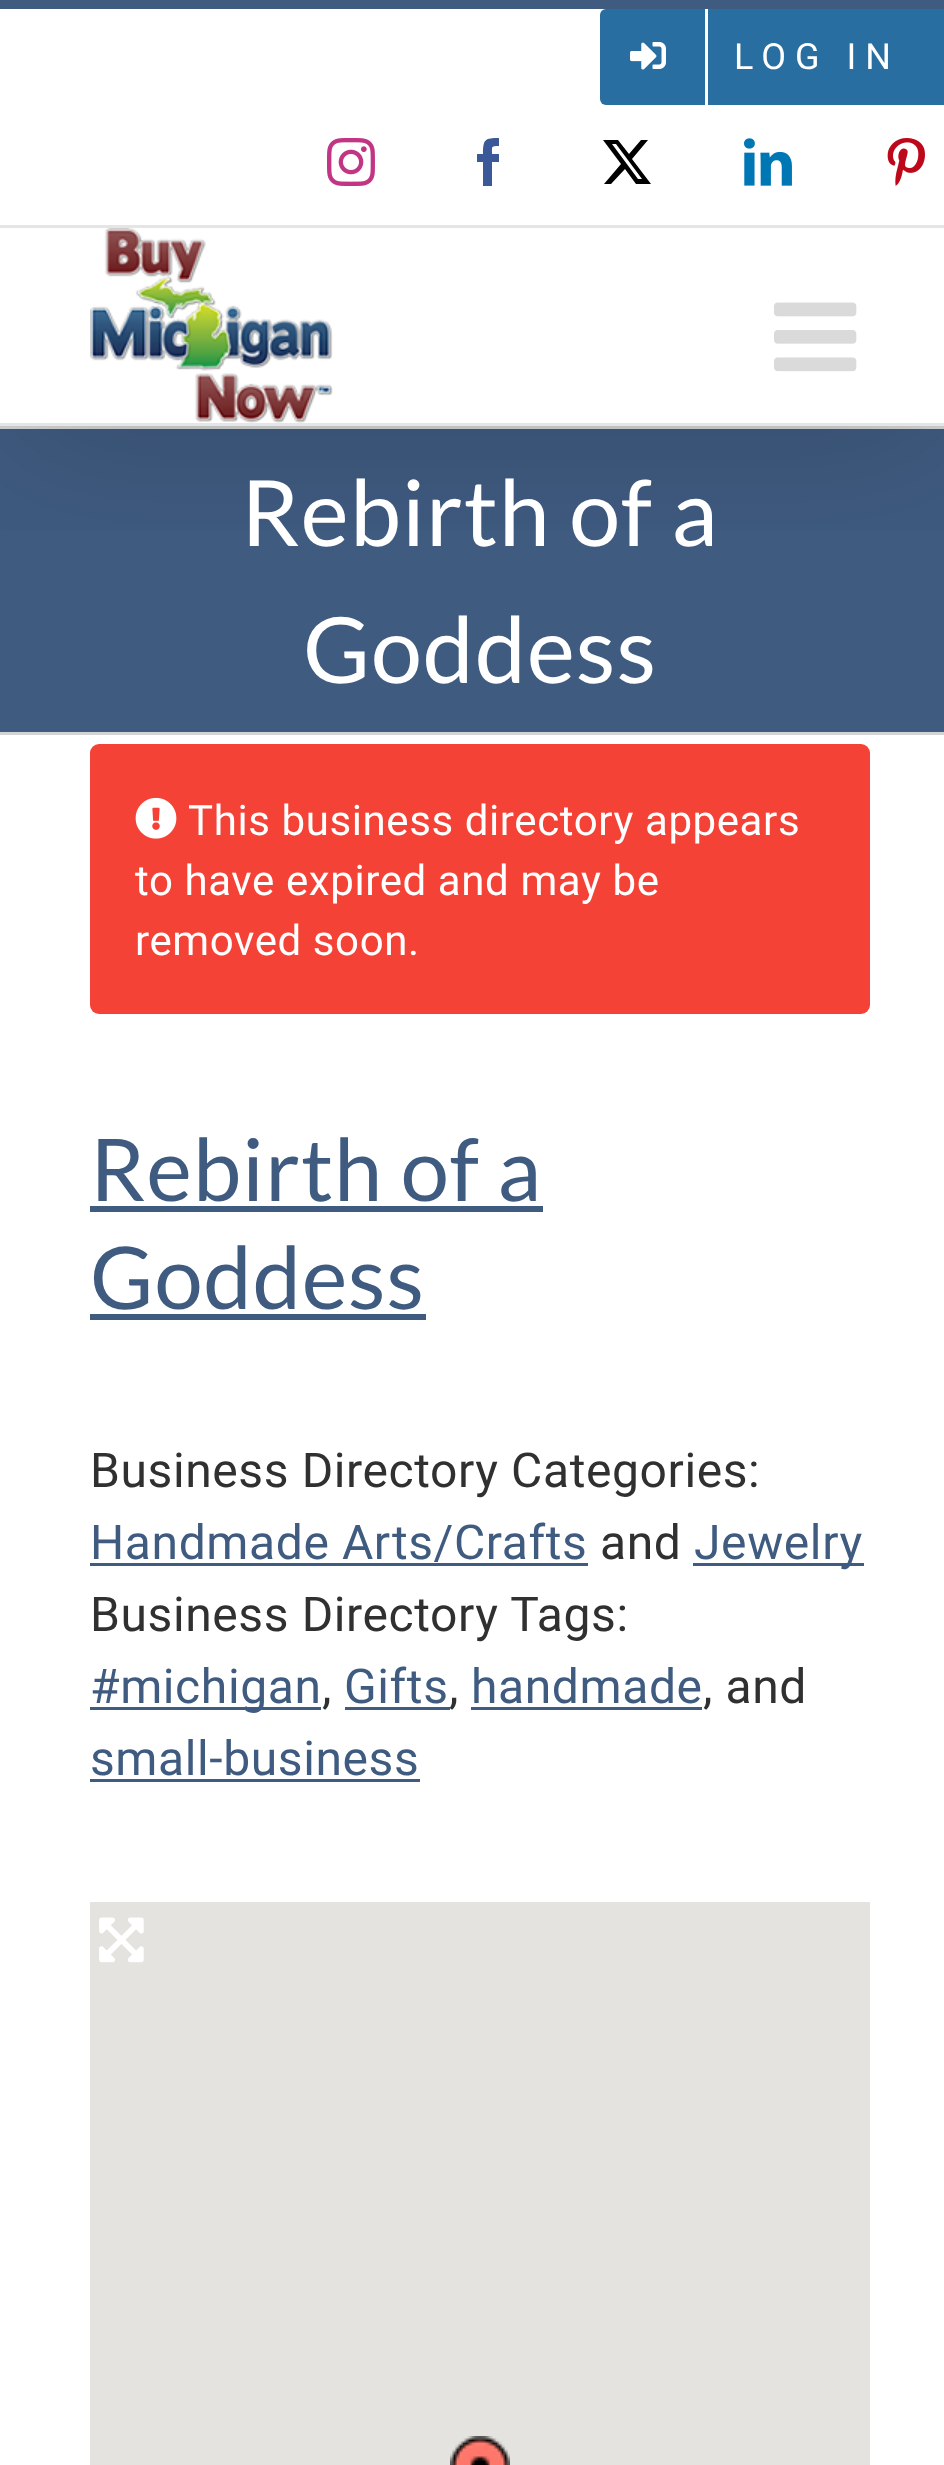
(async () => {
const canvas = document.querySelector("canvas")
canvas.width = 944
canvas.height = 2465
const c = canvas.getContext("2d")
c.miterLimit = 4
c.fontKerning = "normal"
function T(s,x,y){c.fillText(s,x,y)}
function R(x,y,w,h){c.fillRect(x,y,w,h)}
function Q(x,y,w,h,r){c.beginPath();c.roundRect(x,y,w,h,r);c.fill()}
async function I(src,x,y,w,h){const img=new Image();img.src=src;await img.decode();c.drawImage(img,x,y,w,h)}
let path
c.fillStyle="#fff"
R(0,0,944,2465)
c.fillStyle="#3f5b80"
R(0,429,944,303)
c.fillStyle="#d2d3d4"
R(0,426,944,3)
c.save()
c.beginPath()
c.rect(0,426,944,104)
c.clip()
c.fillStyle="#00000024"
c.filter="blur(75px)"
c.beginPath()
c.rect(6,36,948,414)
c.fill()
c.filter="none"
c.restore()
c.fillStyle="#3f5b80"
R(0,0,944,9)
c.fillStyle="#e5e5e5"
R(0,225,944,3)
c.fillStyle="#286ea0"
Q(600,9,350,96,6)
c.fillStyle="#fff"
R(705,9,3,96)
await I("1.png",630,42,36,28)
c.letterSpacing="9px"
c.font="36px Roboto"
T("LOG IN",734,69)
await I("2.png",327,138,48,48)
c.fillStyle="#3b5998"
path = new Path2D("M492 186h-9v-24h-6v-8h6c0-15 2-16 16-16v8c-8 0-7 0-7 8h7v8h-7z")
c.fill(path)
c.fillStyle="#000"
path = new Path2D("M641 140h7l-16 19l19 25h-15l-11-15l-14 15h-7l17-20l-18-24h15l11 14zm-3 39h4l-26-35h-4z")
c.fill(path)
await I("3.png",744,138,48,48)
await I("4.png",887,138,38,48)
c.fillStyle="#e5e5e5"
R(0,423,944,3)
await I("5.png",90,228,243,195)
await I("6.png",774,302,83,70)
c.fillStyle="#d2d3d4"
R(0,732,944,3)
c.letterSpacing="0.9px"
c.font="91.5px Lato"
c.fillStyle="#fff"
T("Rebirth of a",241,546)
T("Goddess",303,683)
c.fillStyle="#f44336"
Q(90,744,780,270,9)
await I("7.png",135,797,42,42)
c.letterSpacing="0.6px"
c.font="42px Roboto"
c.fillStyle="#fff"
T("This business directory appears",188,835)
T("to have expired and may be",135,895)
T("removed soon.",135,955)
c.letterSpacing="0.9px"
c.font="86.5px Lato"
c.fillStyle="#3f5b80"
T("Rebirth of a",90,1201)
R(90,1206,453,6)
T("Goddess",90,1309)
R(90,1314,336,6)
c.letterSpacing="0.6px"
c.font="48px Roboto"
c.fillStyle="#303030"
T("Business Directory Categories:",90,1487)
c.fillStyle="#3f5b80"
T("Handmade Arts/Crafts",90,1559)
R(90,1563,498,3)
c.fillStyle="#303030"
T("and",600,1559)
c.fillStyle="#3f5b80"
R(693,1563,171,3)
T("Jewelry",694,1559)
c.fillStyle="#303030"
T("Business Directory Tags:",90,1631)
c.fillStyle="#3f5b80"
R(90,1707,231,3)
T("#michigan",90,1703)
c.fillStyle="#303030"
T(",",322,1703)
c.fillStyle="#3f5b80"
T("Gifts",344,1703)
R(345,1707,105,3)
c.fillStyle="#303030"
T(",",449,1703)
c.fillStyle="#3f5b80"
T("handmade",471,1703)
R(471,1707,231,3)
c.fillStyle="#303030"
T(", and",703,1703)
c.fillStyle="#3f5b80"
T("small-business",90,1775)
R(90,1779,330,3)
c.fillStyle="#e5e3df"
R(90,1902,780,563)
await I("8.png",450,2436,60,29)
await I("9.png",99,1917,45,46)
})()
